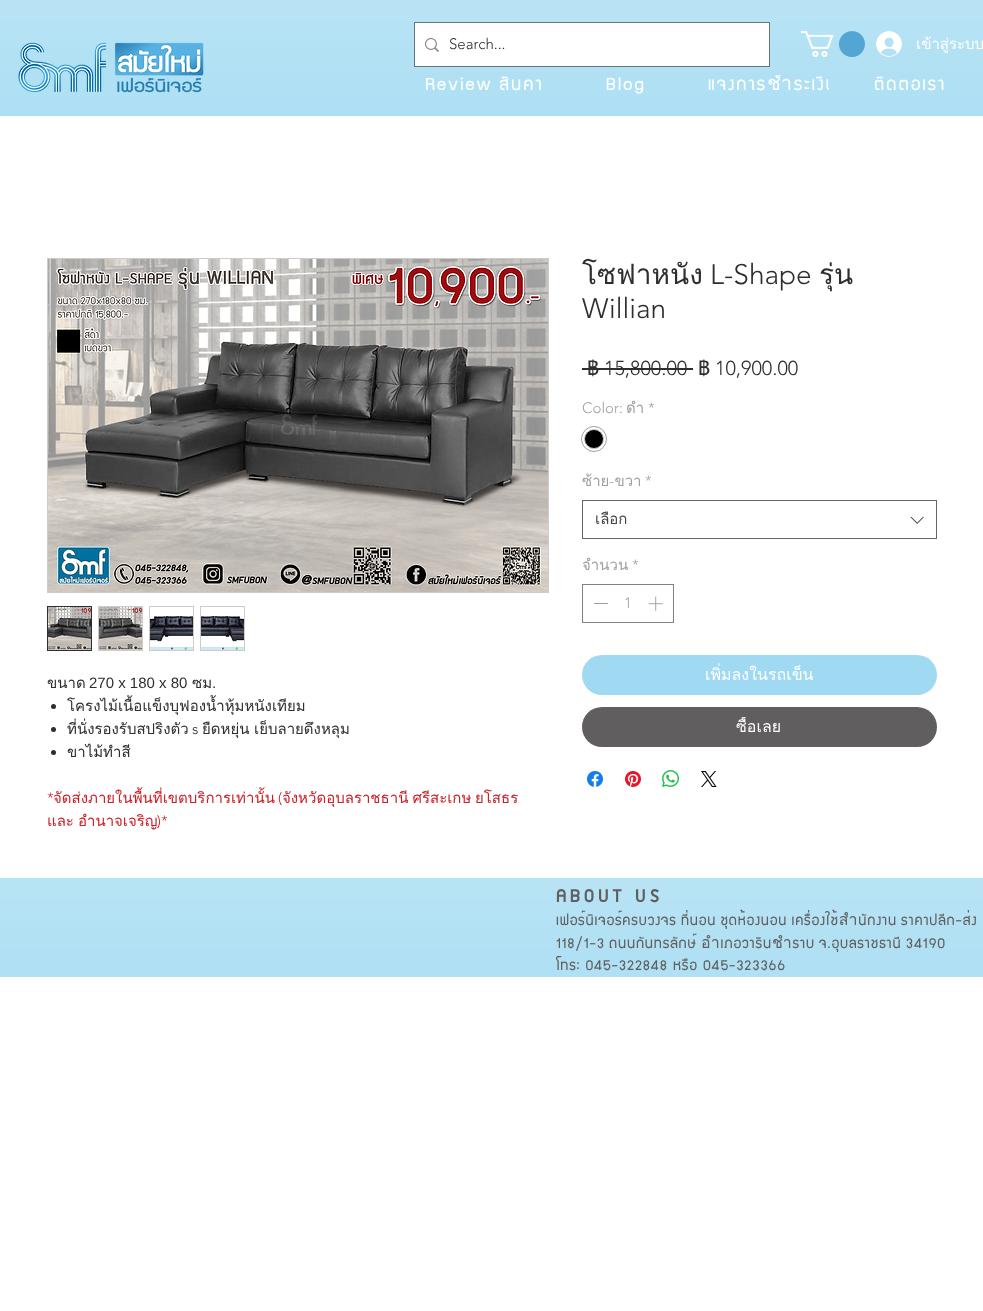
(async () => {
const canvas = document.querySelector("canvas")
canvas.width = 983
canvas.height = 1311
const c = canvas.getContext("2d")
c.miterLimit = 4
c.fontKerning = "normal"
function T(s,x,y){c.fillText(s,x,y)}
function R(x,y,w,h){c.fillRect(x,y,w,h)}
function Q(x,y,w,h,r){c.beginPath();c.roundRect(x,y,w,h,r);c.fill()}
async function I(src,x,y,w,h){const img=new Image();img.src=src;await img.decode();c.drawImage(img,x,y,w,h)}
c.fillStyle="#fff"
R(0,0,983,1311)
c.fillStyle="#a0daf2"
R(0,0,983,116)
await I("1.png",0,0,983,116)
await I("2.png",18,42,186,51)
c.strokeStyle="#2f2e2e99"
c.strokeRect(414.5,22.5,355,44)
c.fillStyle="#fff"
R(415,23,354,43)
await I("3.png",425,38,14,14)
c.font="300 15px 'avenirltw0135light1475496'"
c.fillStyle="#2f2e2e"
T("Search...",449,49)
c.save()
c.beginPath()
c.rect(425,75,119,24)
c.clip()
c.letterSpacing="2px"
c.wordSpacing="-1px"
c.font="20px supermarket"
c.fillStyle="#fff"
T("Review สินค้า",425,90)
c.restore()
c.letterSpacing="2px"
c.font="20px supermarket"
c.fillStyle="#fff"
T("Blog",606,90)
c.save()
c.beginPath()
c.rect(708,75,121,24)
c.clip()
T("แจ้งการชำระเงิน",708,90)
c.restore()
c.save()
c.beginPath()
c.rect(874,75,73,24)
c.clip()
T("ติดต่อเรา",874,90)
c.restore()
await I("4.png",801,31,64,26)
await I("5.png",876,31,26,26)
c.letterSpacing="0px"
c.font="15px Loma"
T("เข้าสู่ระบบ",916,49)
c.font="28px Loma"
c.fillStyle="#2f2e2e"
T("โซฟาหนัง",582,284)
c.font="300 28px 'avenirltw0135light1475496'"
T("L-Shape",710,284)
c.font="28px Loma"
T("รุ่น",819,284)
c.font="300 28px 'avenirltw0135light1475496'"
T("Willian",582,318)
c.font="20px Loma"
T("฿",587,375)
c.font="300 20px 'avenirltw0135light1475496'"
T("15,800.00",604,375)
R(582,368,111,2)
c.font="20px Loma"
T("฿",698,375)
c.font="300 20px 'avenirltw0135light1475496'"
T("10,900.00",715,375)
c.font="300 15px 'avenirltw0135light1475496'"
c.fillStyle="#a0a09f"
T("Color:",582,413)
c.font="15px Loma"
T("ดำ",626,413)
c.font="300 15px 'avenirltw0135light1475496'"
T("*",648,413)
c.beginPath()
c.arc(594,439,12.5,0,7)
c.strokeStyle="#a0a09f"
c.stroke()
c.fillStyle="#000"
c.beginPath()
c.arc(594,439,9.5,0,7)
c.fill()
c.strokeStyle="#c9c9c9"
c.stroke()
c.font="15px Loma"
c.fillStyle="#a0a09f"
T("ซ้าย ขวา",582,486)
c.font="300 15px 'avenirltw0135light1475496'"
T("*",645,486)
T("-",609,486)
c.strokeStyle="#666"
c.strokeRect(582.5,500.5,354,38)
c.save()
c.beginPath()
c.rect(595,509,307,21)
c.clip()
c.font="15px Loma"
c.fillStyle="#444"
T("เลือก",595,524)
c.restore()
await I("6.png",910,516,14,8)
c.font="15px Loma"
T("จำนวน",582,570)
c.font="300 15px 'avenirltw0135light1475496'"
T("*",632,570)
c.strokeStyle="#828282"
c.strokeRect(582.5,584.5,91,38)
R(594,603,14,1)
T("1",624,608)
await I("7.png",648,596,15,15)
c.fillStyle="#a0daf2"
Q(582,655,355,40,20)
c.font="16px Loma"
c.fillStyle="#fff"
T("เพิ่มลงในรถเข็น",705,680)
c.fillStyle="#605e5e"
Q(582,707,355,40,20)
c.save()
c.beginPath()
c.rect(736,717,46,20)
c.clip()
c.fillStyle="#fff"
T("ซื้อเลย",736,732)
c.restore()
await I("8.png",587,771,16,16)
await I("9.png",625,771,16,16)
await I("10.png",662,770,17,17)
await I("11.png",701,771,16,16)
c.strokeStyle="#ccc"
c.strokeRect(47.5,258.5,501,334)
await I("12.png",48,259,500,333)
c.strokeStyle="#2f2e2e"
c.strokeRect(47.5,606.5,44,44)
await I("13.png",48,607,43,43)
c.fillStyle="#ccc"
R(98,606,45,45)
await I("14.png",99,607,43,43)
R(149,606,45,45)
await I("15.png",150,607,43,43)
R(200,606,45,45)
await I("16.png",201,607,43,43)
c.font="15px Loma"
c.fillStyle="#2f2e2e"
T("ขนาด",47,688)
c.font="15px Liberation Sans"
T("270 x 180 x 80",89,688)
c.font="15px Loma"
T("ซม",192,688)
c.font="15px Liberation Sans"
T(".",212,688)
c.beginPath()
c.arc(53.5,706.5,2.5,0,7)
c.fill()
c.font="15px Loma"
T("โครงไม้เนื้อแข็งบุฟองน้ำหุ้มหนังเทียม",67,711)
T("ที่นั่งรองรับสปริงตัว",67,734)
c.font="300 15px 'avenirltw0135light1475496'"
T("s",192,734)
c.font="15px Loma"
T("ยืดหยุ่น",202,734)
T("เย็บลายดึงหลุม",254,734)
c.beginPath()
c.arc(53.5,729.5,2.5,0,7)
c.fill()
c.beginPath()
c.arc(53.5,752.5,2.5,0,7)
c.fill()
T("ขาไม้ทำสี",67,757)
c.font="300 15px 'avenirltw0135light1475496'"
c.fillStyle="#cb2026"
T("*",47,803)
c.font="15px Loma"
T("จัดส่งภายในพื้นที่เขตบริการเท่านั้น",53,803)
c.font="300 15px 'avenirltw0135light1475496'"
T("(",278,803)
c.wordSpacing="-1px"
c.font="15px Loma"
T("จังหวัดอุบลราชธานี ศรีสะเกษ",282,803)
c.wordSpacing="0px"
T("ยโสธร",475,803)
c.wordSpacing="-1px"
T("และ อำนาจเจริญ",47,826)
c.wordSpacing="0px"
c.font="300 15px 'avenirltw0135light1475496'"
T(")*",157,826)
c.fillStyle="#a0daf2"
R(0,878,983,99)
await I("17.png",0,878,983,99)
c.letterSpacing="4px"
c.font="bold 20px supermarket"
c.fillStyle="#605e5e"
T("ABOUT US",556,902)
c.letterSpacing="0.8px"
c.wordSpacing="-1px"
c.font="16px supermarket"
T("เฟอร์นิเจอร์ครบวงจร ที่นอน ชุดห้องนอน เครื่องใช้สำนักงาน ราคาปลีก-ส่ง",556,925)
T("118/1-3 ถนนกันทรลักษ์ อำเภอวารินชำราบ จ.อุบลราชธานี 34190",556,948)
c.wordSpacing="0px"
T("โทร: 045-322848 หรือ 045-323366",556,970)
})()
